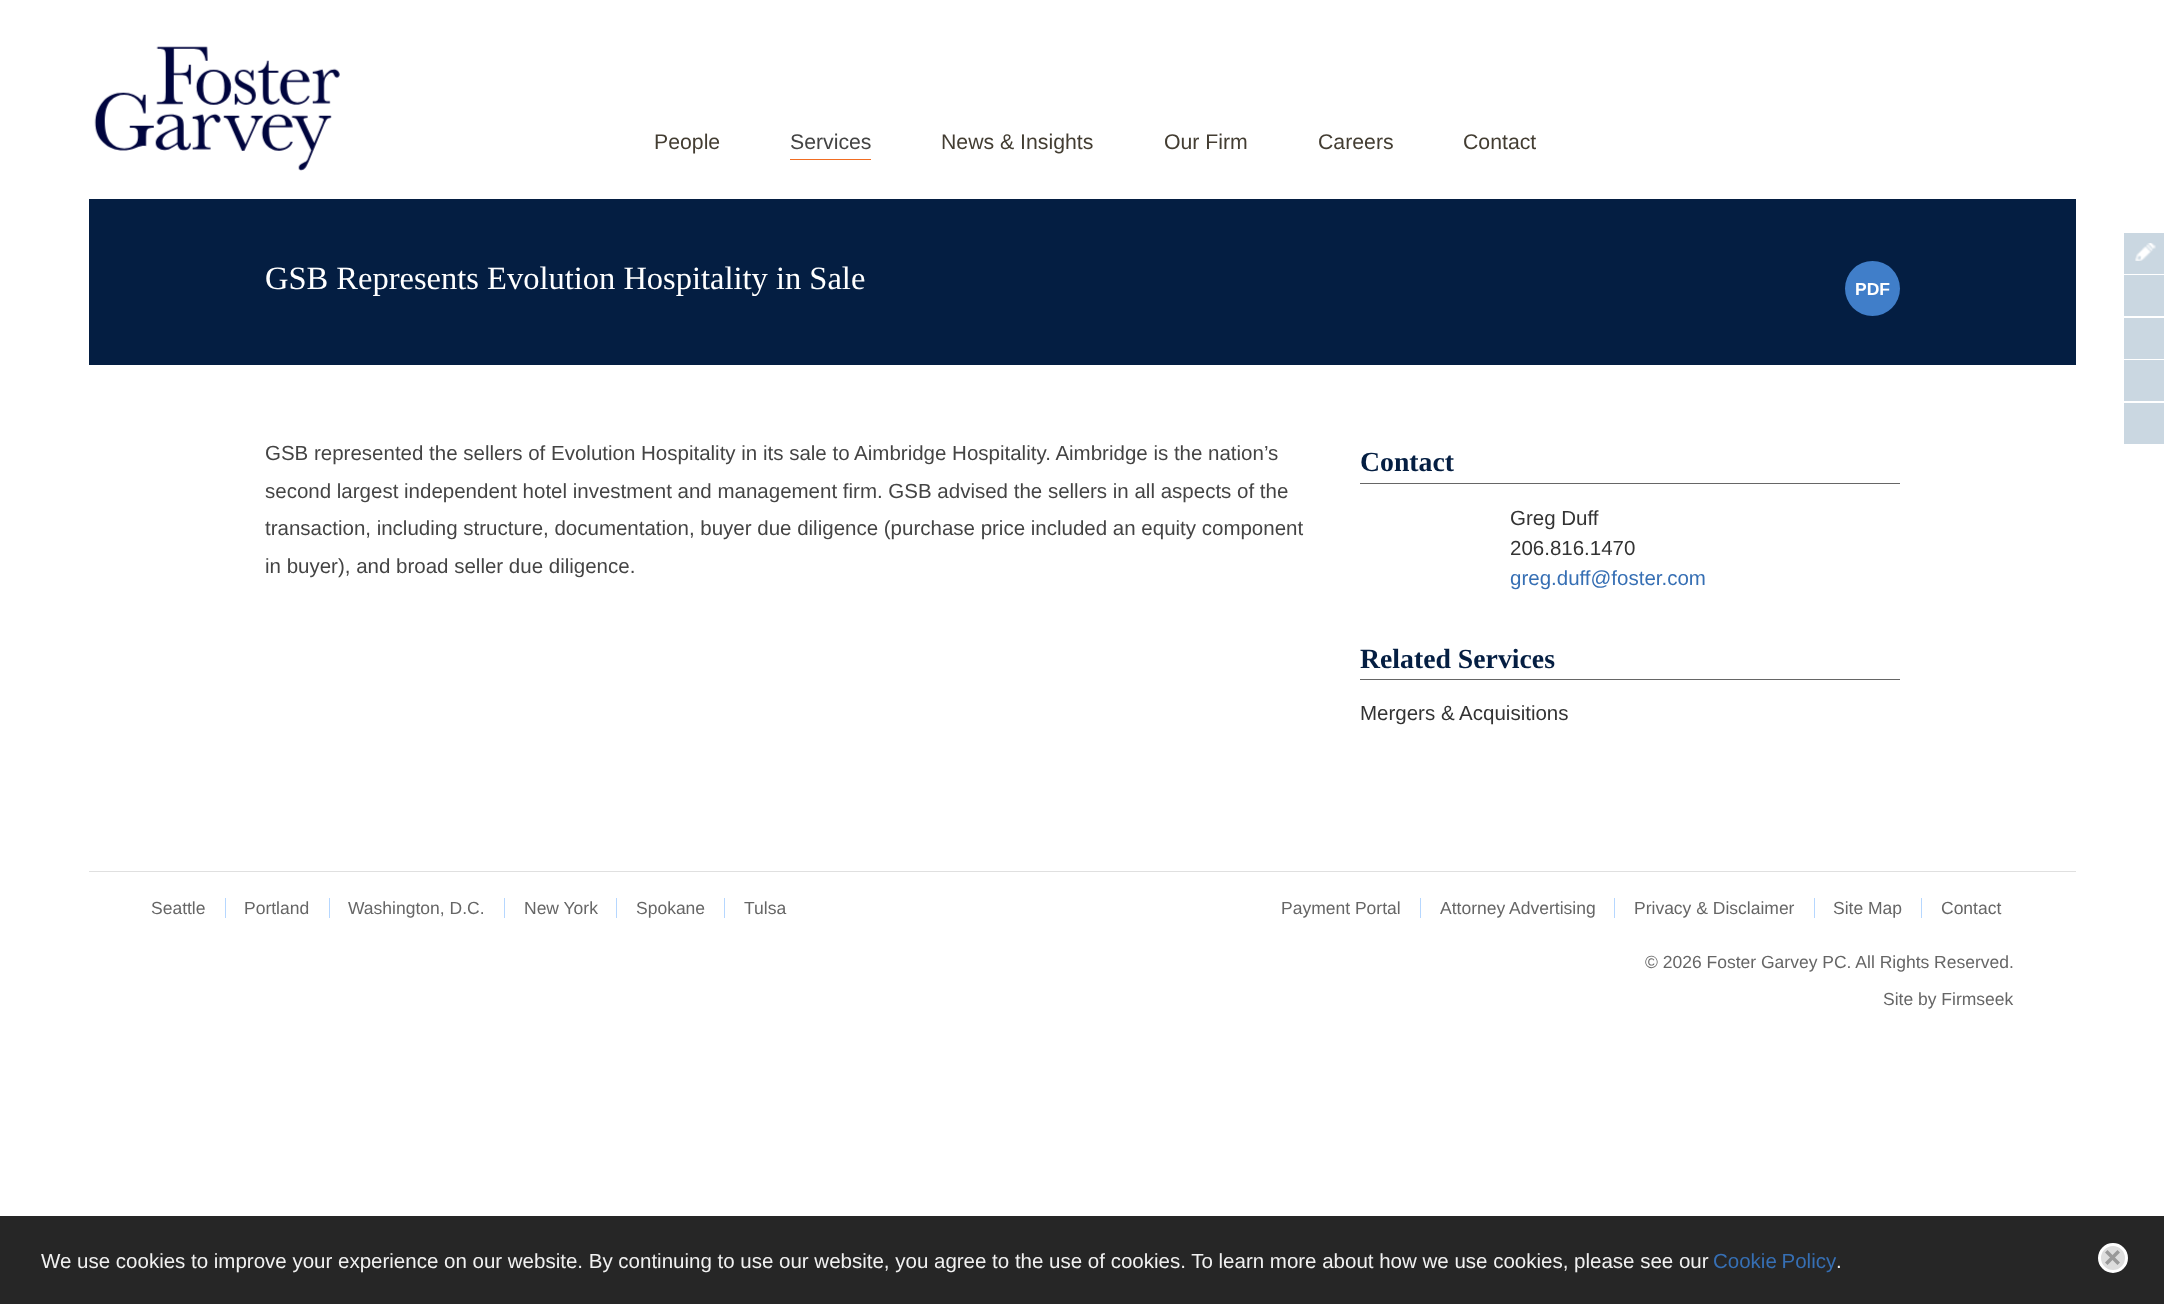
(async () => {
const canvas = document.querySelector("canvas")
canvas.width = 2164
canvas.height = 1304
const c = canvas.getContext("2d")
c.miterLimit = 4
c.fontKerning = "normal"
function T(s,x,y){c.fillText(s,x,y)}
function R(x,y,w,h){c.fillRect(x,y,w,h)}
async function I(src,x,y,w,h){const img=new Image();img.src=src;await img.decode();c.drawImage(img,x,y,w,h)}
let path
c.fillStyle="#fff"
R(0,0,2164,1304)
await I("1.png",94,46,246,125)
c.fillStyle="#cad7e1"
R(2124,233,40,41)
await I("2.png",2135,243,21,18)
R(2124,275,40,41)
R(2124,318,40,41)
R(2124,360,40,41)
R(2124,403,40,41)
c.font="21.25px Liberation Sans"
c.fillStyle="#433d32"
T("People",654,149)
c.fillStyle="#f16d22"
R(790,159,81,1)
c.fillStyle="#444"
T("Services",790,149)
c.fillStyle="#433d32"
T("News & Insights",941,149)
T("Our Firm",1164,149)
T("Careers",1318,149)
T("Contact",1463,149)
c.fillStyle="#041e42"
R(89,199,1987,166)
c.font="32.5px Liberation Serif"
c.fillStyle="#fff"
T("GSB Represents Evolution Hospitality in Sale",265,289)
c.fillStyle="#407ec9"
c.beginPath()
c.arc(1872.5,288.5,27.5,0,7)
c.fill()
c.font="bold 17.5px Liberation Sans"
c.fillStyle="#fff"
T("PDF",1855,295)
c.font="20.5px Liberation Sans"
c.fillStyle="#444"
T("GSB represented the sellers of Evolution Hospitality in its sale to Aimbridge Hospitality. Aimbridge is the nation’s",265,460)
T("second largest independent hotel investment and management firm. GSB advised the sellers in all aspects of the",265,498)
T("transaction, including structure, documentation, buyer due diligence (purchase price included an equity component",265,535)
T("in buyer), and broad seller due diligence.",265,573)
c.fillStyle="#666"
R(1360,483,540,1)
c.font="bold 27.75px Liberation Serif"
c.fillStyle="#041e42"
T("Contact",1360,471)
c.font="20.5px Liberation Sans"
c.fillStyle="#333"
T("Greg Duff",1510,525)
T("206.816.1470",1510,555)
c.fillStyle="#366fb4"
T("greg.duff@foster.com",1510,585)
c.fillStyle="#666"
R(1360,679,540,1)
c.font="bold 27.75px Liberation Serif"
c.fillStyle="#041e42"
T("Related Services",1360,668)
c.font="20.5px Liberation Sans"
c.fillStyle="#333"
T("Mergers & Acquisitions",1360,720)
c.fillStyle="#e0e0e0"
R(89,871,1987,1)
c.fillStyle="#b6d7ff"
R(225,898,1,20)
c.font="17.5px Liberation Sans"
c.fillStyle="#666"
T("Seattle",151,914)
c.fillStyle="#b6d7ff"
R(329,898,1,20)
c.fillStyle="#666"
T("Portland",244,914)
c.fillStyle="#b6d7ff"
R(504,898,1,20)
c.fillStyle="#666"
T("Washington, D.C.",348,914)
c.fillStyle="#b6d7ff"
R(616,898,1,20)
c.fillStyle="#666"
T("New York",524,914)
c.fillStyle="#b6d7ff"
R(724,898,1,20)
c.fillStyle="#666"
T("Spokane",636,914)
T("Tulsa",744,914)
c.fillStyle="#b6d7ff"
R(1420,898,1,20)
c.fillStyle="#666"
T("Payment Portal",1281,914)
c.fillStyle="#b6d7ff"
R(1614,898,1,20)
c.fillStyle="#666"
T("Attorney Advertising",1440,914)
c.fillStyle="#b6d7ff"
R(1814,898,1,20)
c.fillStyle="#666"
T("Privacy & Disclaimer",1634,914)
c.fillStyle="#b6d7ff"
R(1921,898,1,20)
c.fillStyle="#666"
T("Site Map",1833,914)
T("Contact",1941,914)
T("© 2026 Foster Garvey PC. All Rights Reserved.",1645,968)
T("Site by Firmseek",1883,1005)
c.fillStyle="#262626"
R(0,1216,2164,88)
c.font="20.5px Liberation Sans"
c.fillStyle="#f1f1f1"
T("We use cookies to improve your experience on our website. By continuing to use our website, you agree to the use of cookies. To learn more about how we use cookies, please see our",41,1268)
c.wordSpacing="-1px"
c.fillStyle="#366fb4"
T("Cookie Policy",1713,1268)
c.wordSpacing="0px"
c.fillStyle="#f1f1f1"
T(".",1836,1268)
c.fillStyle="#ddd"
c.beginPath()
c.arc(2113,1258,13.5,0,7)
c.fill()
c.strokeStyle="#fff"
c.lineWidth=3
c.stroke()
c.fillStyle="#999"
path = new Path2D("M2105 1262.5l12.5-12.5l2.5 2.5l-12.5 12.5z")
c.fill(path)
path = new Path2D("M2107.5 1250l12.5 12.5l-2.5 2.5l-12.5-12.5z")
c.fill(path)
})()
